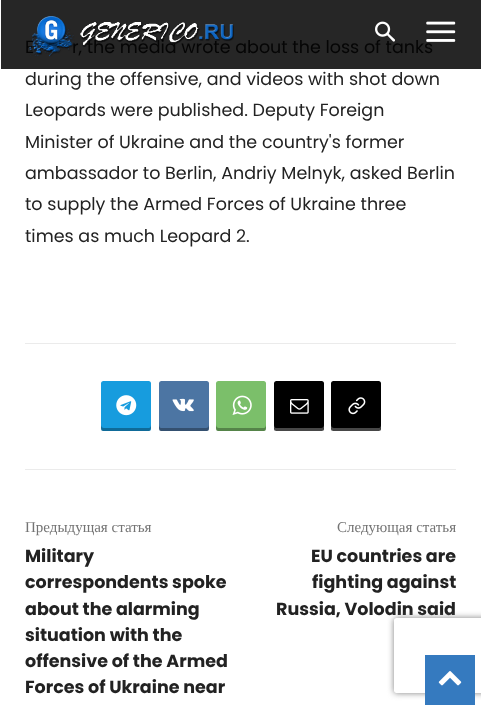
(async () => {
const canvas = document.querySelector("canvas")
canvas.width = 481
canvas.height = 710
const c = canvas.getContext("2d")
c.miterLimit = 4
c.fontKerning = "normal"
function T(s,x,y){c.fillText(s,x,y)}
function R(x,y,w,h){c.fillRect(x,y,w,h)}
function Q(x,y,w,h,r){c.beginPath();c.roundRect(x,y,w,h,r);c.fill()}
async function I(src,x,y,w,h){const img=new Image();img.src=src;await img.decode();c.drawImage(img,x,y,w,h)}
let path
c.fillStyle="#fff"
R(0,0,481,710)
c.fillStyle="#262626"
R(1,0,480,69)
c.font="17.5px Poppins"
c.fillStyle="#050505"
T("E",25,53)
T("r, the media wrote about the loss of tanks",72,53)
await I("1.png",29,16,205,41)
await I("2.png",375,21,20,21)
await I("3.png",426,21,30,21)
c.fillStyle="#222"
T("during the offensive, and videos with shot down",25,85)
T("Leopards were published. Deputy Foreign",25,116)
T("Minister of Ukraine and the country's former",25,148)
T("ambassador to Berlin, Andriy Melnyk, asked Berlin",25,179)
T("to supply the Armed Forces of Ukraine three",25,210)
T("times as much Leopard 2.",25,242)
c.fillStyle="#ebebeb"
R(25,343,431,1)
c.fillStyle="#179cde"
Q(101,381,50,50,2.5)
c.save()
c.beginPath()
c.rect(101,381,50,50)
c.clip()
c.fillStyle="#0000004f"
path = new Path2D("M101 425c0 8 1 6 10 6h30c9 0 10 2 10-6c0 1-1 3-2 3h-45c-2 0-3-2-3-3z")
c.fill(path)
c.restore()
await I("4.png",116,395,21,21)
c.fillStyle="#4c75a3"
Q(159,381,50,50,2.5)
c.save()
c.beginPath()
c.rect(159,381,50,50)
c.clip()
c.fillStyle="#0000004f"
path = new Path2D("M159 425c0 8 1 6 10 6h30c9 0 10 2 10-6c0 1-1 3-3 3h-45c-1 0-2-2-2-3z")
c.fill(path)
c.restore()
await I("5.png",172,398,22,14)
c.fillStyle="#7bbf6a"
Q(216,381,50,50,2.5)
c.save()
c.beginPath()
c.rect(216,381,50,50)
c.clip()
c.fillStyle="#0000004f"
path = new Path2D("M216 425c0 8 1 6 10 6h30c9 0 10 2 10-6c0 1-1 3-2 3h-45c-2 0-3-2-3-3z")
c.fill(path)
c.restore()
await I("6.png",232,395,20,20)
c.fillStyle="#000"
Q(274,381,50,50,2.5)
c.fillStyle="#ffffff47"
path = new Path2D("M274 425c0 8 1 6 10 6h30c9 0 10 2 10-6c0 1-1 3-3 3h-45c-1 0-2-2-2-3z")
c.fill(path)
await I("7.png",290,399,19,15)
c.fillStyle="#000"
Q(331,381,50,50,2.5)
c.fillStyle="#ffffff47"
path = new Path2D("M331 425c0 8 1 6 10 6h30c9 0 10 2 10-6c0 1-1 3-2 3h-45c-2 0-3-2-3-3z")
c.fill(path)
await I("8.png",348,397,18,18)
c.fillStyle="#ebebeb"
R(25,469,431,1)
c.font="15px Liberation Serif"
c.fillStyle="#747474"
T("Предыдущая статья",25,532)
c.font="bold 17.5px Poppins"
c.fillStyle="#222"
T("Military",25,562)
T("correspondents spoke",25,588)
T("about the alarming",25,615)
T("situation with the",25,641)
T("offensive of the Armed",25,667)
T("Forces of Ukraine near",25,693)
c.font="15px Liberation Serif"
c.fillStyle="#747474"
T("Следующая статья",337,532)
c.font="bold 17.5px Poppins"
c.fillStyle="#222"
T("EU countries are",311,562)
T("fighting against",312,588)
T("Russia, Volodin said",276,615)
c.save()
path = new Path2D("M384 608h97v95h-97zm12.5 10h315c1.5 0 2.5 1 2.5 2.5v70c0 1.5-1 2.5-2.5 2.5h-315c-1.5 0-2.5-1-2.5-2.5v-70c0-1.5 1-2.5 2.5-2.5z")
c.clip(path,"evenodd")
c.fillStyle="#808080"
c.filter="blur(3px)"
c.beginPath()
c.roundRect(394,618,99,75,2.5)
c.fill()
c.filter="none"
c.restore()
c.fillStyle="#357abf"
R(425,655,50,50)
await I("9.png",438,671,24,15)
})()
